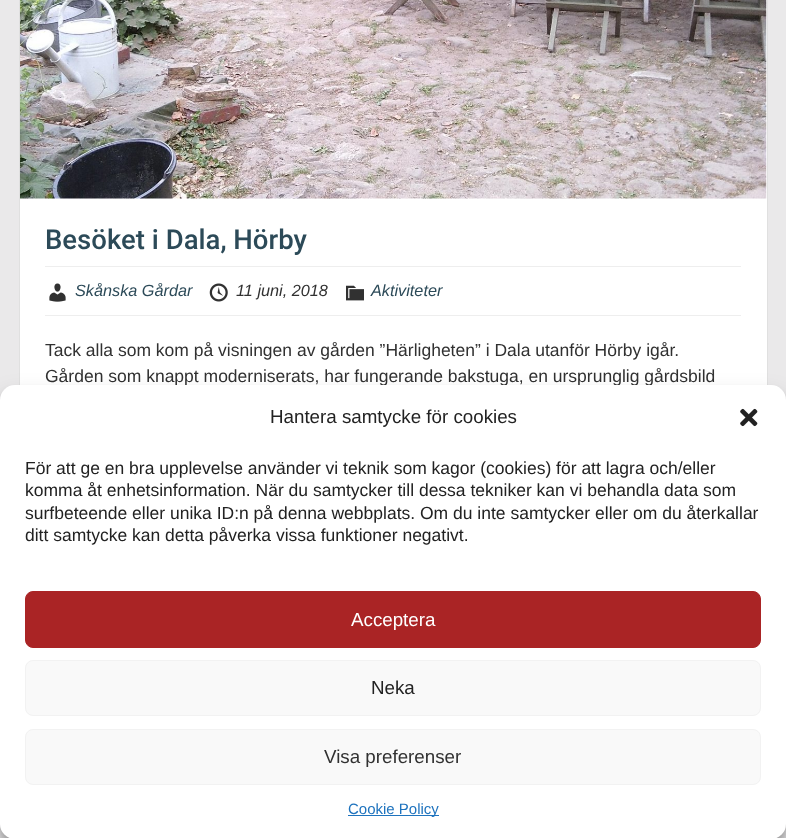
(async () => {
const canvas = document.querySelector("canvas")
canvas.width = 786
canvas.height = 838
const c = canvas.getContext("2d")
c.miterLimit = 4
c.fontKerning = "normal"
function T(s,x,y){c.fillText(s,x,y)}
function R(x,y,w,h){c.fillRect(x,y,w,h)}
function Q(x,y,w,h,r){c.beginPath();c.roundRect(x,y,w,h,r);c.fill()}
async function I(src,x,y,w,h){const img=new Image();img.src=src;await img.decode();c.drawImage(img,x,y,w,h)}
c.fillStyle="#eae9ea"
R(0,0,786,838)
c.fillStyle="#fff"
R(19,0,749,385)
c.strokeStyle="#0000001f"
c.strokeRect(19.5,-.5,748,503)
await I("1.png",20,0,747,199)
c.font="500 27.5px Roboto"
c.fillStyle="#2c4a58"
T("Besöket i Dala, Hörby",45,249)
c.fillStyle="#eee"
R(45,266,696,1)
R(45,315,696,1)
await I("2.png",49,283,17,19)
c.font="italic 16.25px Liberation Sans"
c.fillStyle="#2c4a58"
T("Skånska Gårdar",75,296)
await I("3.png",209,283,19,19)
c.fillStyle="#313131"
T("11 juni, 2018",236,296)
await I("4.png",346,285,18,16)
c.fillStyle="#2c4a58"
T("Aktiviteter",371,296)
c.font="17.5px Liberation Sans"
c.fillStyle="#313131"
T("Tack alla som kom på visningen av gården ”Härligheten” i Dala utanför Hörby igår.",45,356)
T("Gården som knappt moderniserats, har fungerande bakstuga, en ursprunglig gårdsbild",45,382)
c.fillStyle="#0000003b"
c.filter="blur(4px)"
c.beginPath()
c.roundRect(0,393,786,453,15)
c.fill()
c.filter="none"
c.fillStyle="#00000030"
c.filter="blur(12.5px)"
c.beginPath()
c.roundRect(0,398,786,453,15)
c.fill()
c.filter="none"
c.fillStyle="#fff"
Q(0,385,786,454,15)
c.font="18.75px Liberation Sans"
c.fillStyle="#222"
T("Hantera samtycke för cookies",270,423)
await I("5.png",740,408,18,19)
c.font="17.5px Liberation Sans"
T("För att ge en bra upplevelse använder vi teknik som kagor (cookies) för att lagra och/eller",25,474)
T("komma åt enhetsinformation. När du samtycker till dessa tekniker kan vi behandla data som",25,496)
T("surfbeteende eller unika ID:n på denna webbplats. Om du inte samtycker eller om du återkallar",25,519)
T("ditt samtycke kan detta påverka vissa funktioner negativt.",25,541)
c.fillStyle="#aa2425"
c.beginPath()
c.roundRect(25.5,591.5,735,56,7.5)
c.fill()
c.strokeStyle="#aa2425"
c.stroke()
c.font="18.75px Liberation Sans"
c.fillStyle="#fff"
T("Acceptera",351,626)
c.fillStyle="#f9f9f9"
c.beginPath()
c.roundRect(25.5,660.5,735,55,7.5)
c.fill()
c.strokeStyle="#f2f2f2"
c.stroke()
c.fillStyle="#222"
T("Neka",371,694)
c.fillStyle="#f9f9f9"
c.beginPath()
c.roundRect(25.5,729.5,735,55,7.5)
c.fill()
c.stroke()
c.fillStyle="#313131"
T("Visa preferenser",324,763)
c.fillStyle="#1e73be"
R(348,815,91,1)
c.font="15px Liberation Sans"
T("Cookie Policy",348,814)
})()
